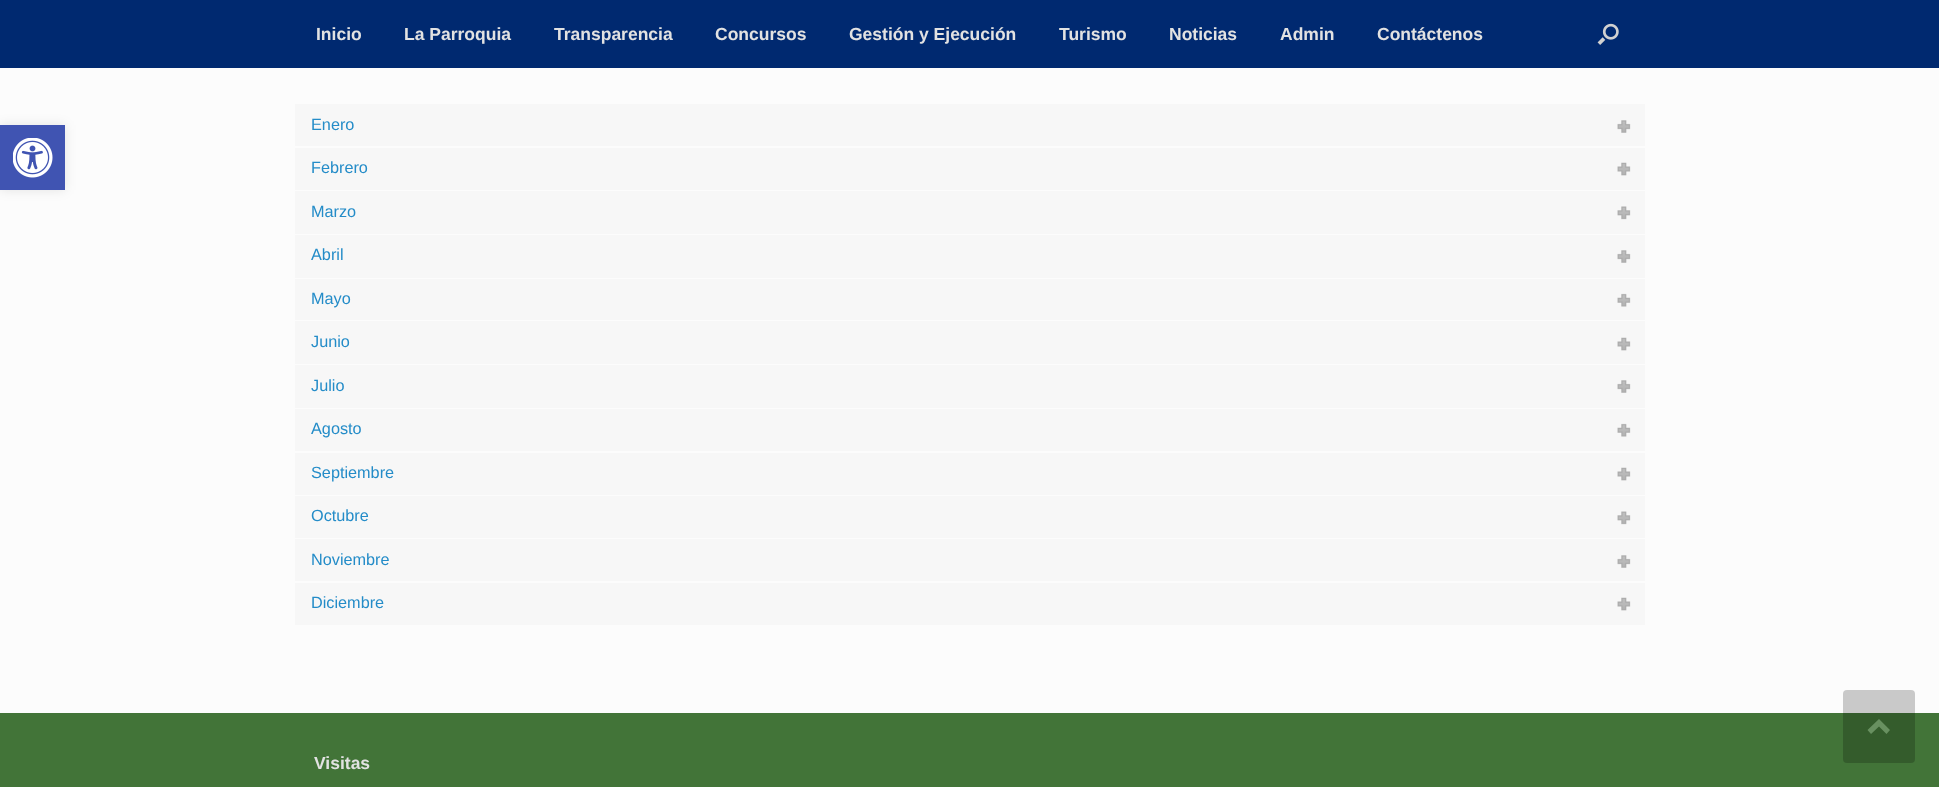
(async () => {
const canvas = document.querySelector("canvas")
canvas.width = 1939
canvas.height = 787
const c = canvas.getContext("2d")
c.miterLimit = 4
c.fontKerning = "normal"
function T(s,x,y){c.fillText(s,x,y)}
function R(x,y,w,h){c.fillRect(x,y,w,h)}
function Q(x,y,w,h,r){c.beginPath();c.roundRect(x,y,w,h,r);c.fill()}
async function I(src,x,y,w,h){const img=new Image();img.src=src;await img.decode();c.drawImage(img,x,y,w,h)}
let path
c.fillStyle="#427438"
R(0,0,1939,787)
c.fillStyle="#fcfcfc"
R(0,68,1939,645)
c.fillStyle="#0000001a"
c.filter="blur(6px)"
c.beginPath()
c.rect(0,125,65,65)
c.fill()
c.filter="none"
c.fillStyle="#4054b2"
R(0,125,65,65)
await I("1.png",13,138,40,40)
c.fillStyle="#002970"
R(0,0,1939,68)
c.font="bold 17.5px Liberation Sans"
c.fillStyle="#e2e2e2"
T("Inicio",316,40)
T("La Parroquia",404,40)
T("Transparencia",554,40)
T("Concursos",715,40)
T("Gestión y Ejecución",849,40)
T("Turismo",1059,40)
T("Noticias",1169,40)
T("Admin",1280,40)
T("Contáctenos",1377,40)
await I("2.png",1597,23,22,22)
c.fillStyle="#f7f7f7"
R(295,104,1350,42)
c.font="16.25px Liberation Sans"
c.fillStyle="#248cc8"
T("Enero",311,130)
await I("3.png",1617,120,14,13)
c.fillStyle="#f7f7f7"
R(295,148,1350,42)
c.fillStyle="#248cc8"
T("Febrero",311,173)
await I("4.png",1617,162,14,14)
c.fillStyle="#f7f7f7"
R(295,191,1350,43)
c.fillStyle="#248cc8"
T("Marzo",311,217)
await I("5.png",1617,206,14,14)
c.fillStyle="#f7f7f7"
R(295,235,1350,43)
c.fillStyle="#248cc8"
T("Abril",311,260)
await I("3.png",1617,250,14,13)
c.fillStyle="#f7f7f7"
R(295,279,1350,41)
c.fillStyle="#248cc8"
T("Mayo",311,304)
await I("6.png",1617,293,14,14)
c.fillStyle="#f7f7f7"
R(295,321,1350,43)
c.fillStyle="#248cc8"
T("Junio",311,347)
await I("4.png",1617,337,14,14)
c.fillStyle="#f7f7f7"
R(295,365,1350,43)
c.fillStyle="#248cc8"
T("Julio",311,391)
await I("3.png",1617,380,14,13)
c.fillStyle="#f7f7f7"
R(295,409,1350,42)
c.fillStyle="#248cc8"
T("Agosto",311,434)
await I("6.png",1617,423,14,14)
c.fillStyle="#f7f7f7"
R(295,453,1350,42)
c.fillStyle="#248cc8"
T("Septiembre",311,478)
await I("4.png",1617,467,14,14)
c.fillStyle="#f7f7f7"
R(295,496,1350,42)
c.fillStyle="#248cc8"
T("Octubre",311,521)
await I("7.png",1617,511,14,14)
c.fillStyle="#f7f7f7"
R(295,539,1350,42)
c.fillStyle="#248cc8"
T("Noviembre",311,565)
await I("3.png",1617,555,14,13)
c.fillStyle="#f7f7f7"
R(295,583,1350,42)
c.fillStyle="#248cc8"
T("Diciembre",311,608)
await I("4.png",1617,597,14,14)
c.font="bold 17.5px Liberation Sans"
c.fillStyle="#e2e2e2"
T("Visitas",314,769)
c.fillStyle="#00000033"
Q(1843,690,72,73,4)
c.fillStyle="#689060"
path = new Path2D("M1890 730l-11-11l-11.5 11l3.5 4l8-7.5l7.5 7.5z")
c.fill(path)
})()
